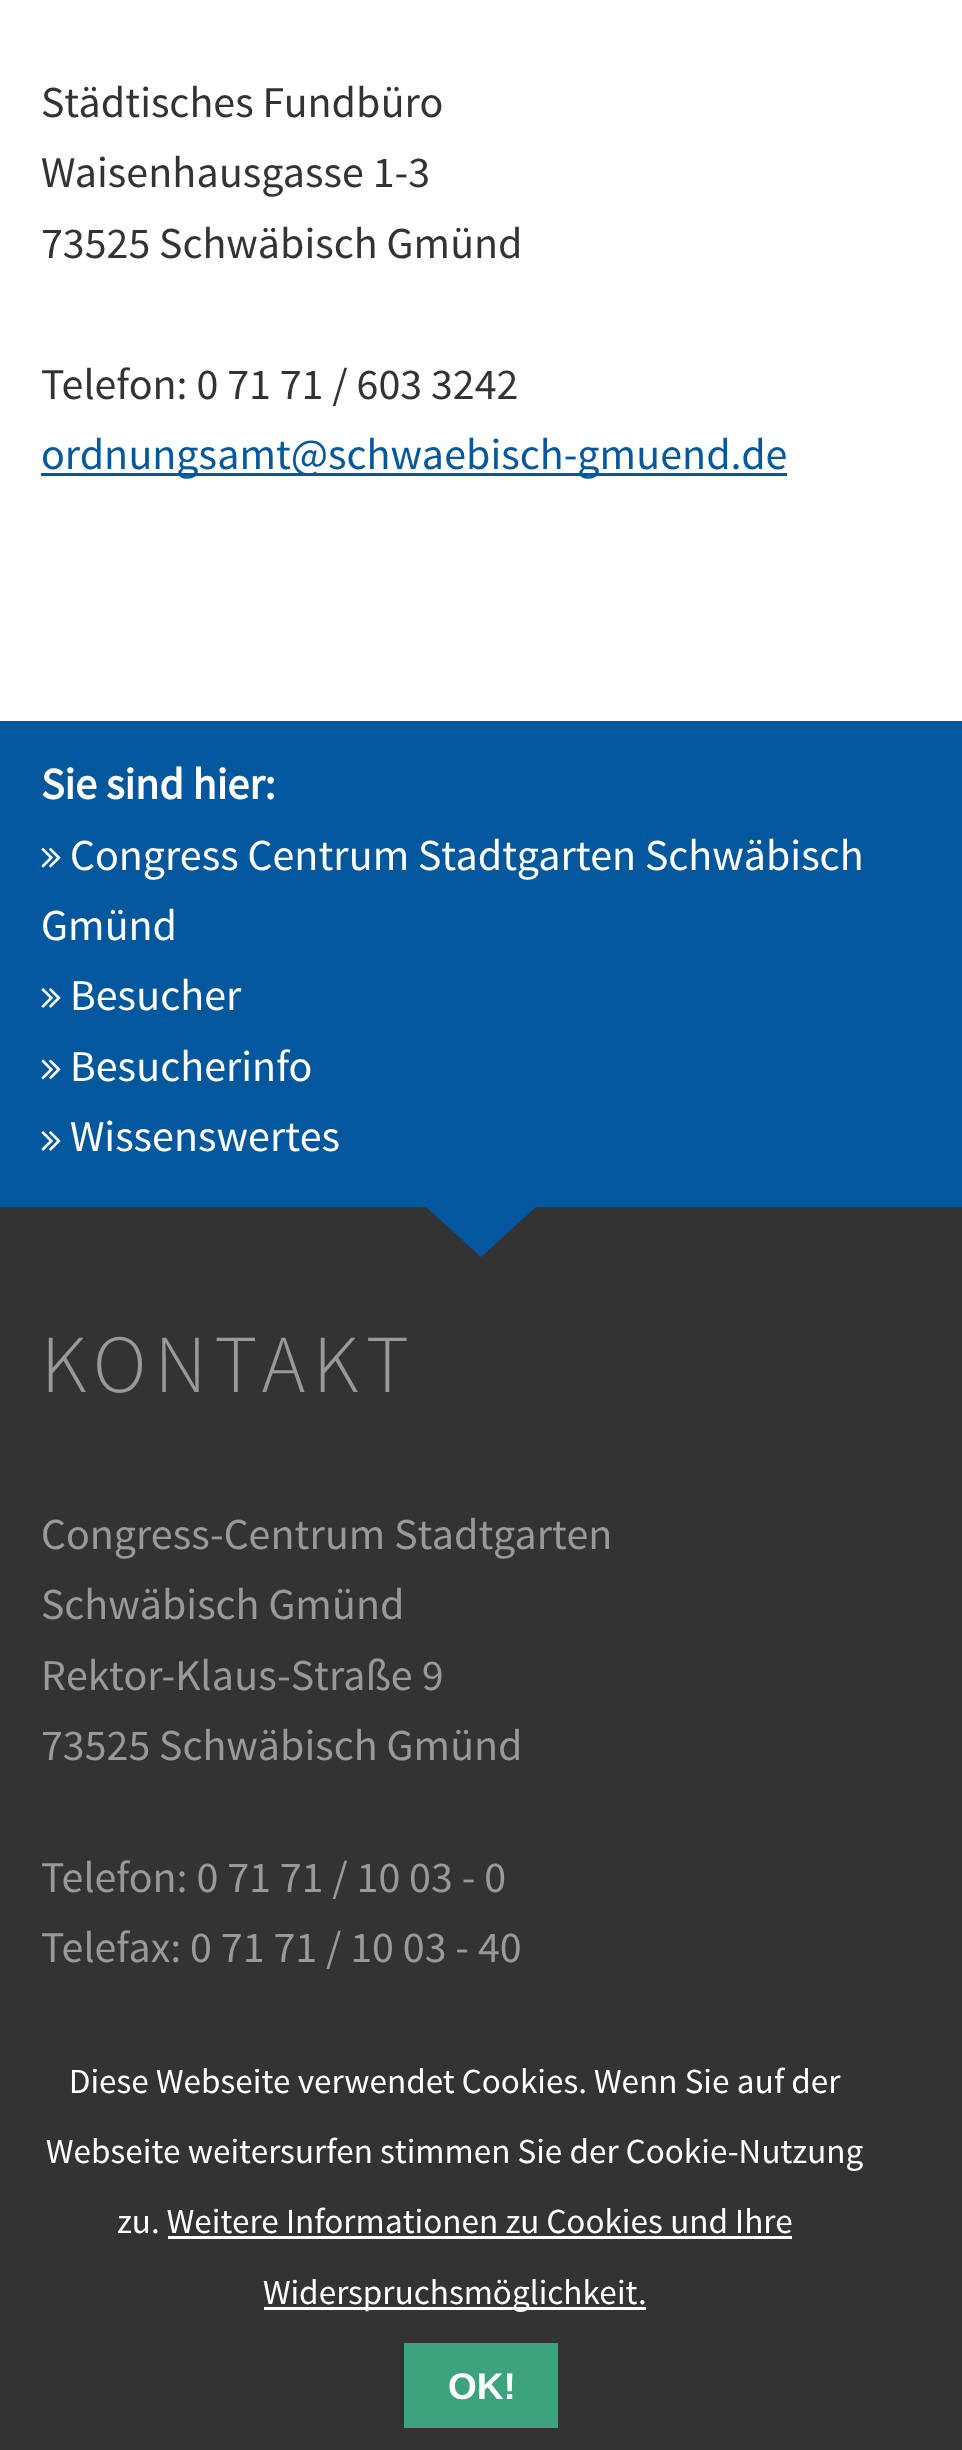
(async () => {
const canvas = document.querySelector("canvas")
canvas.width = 962
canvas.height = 2450
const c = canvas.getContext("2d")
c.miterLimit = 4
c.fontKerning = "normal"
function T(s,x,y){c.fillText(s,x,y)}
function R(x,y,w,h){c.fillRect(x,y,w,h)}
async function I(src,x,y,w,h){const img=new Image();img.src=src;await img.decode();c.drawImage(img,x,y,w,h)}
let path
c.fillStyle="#fff"
R(0,0,962,2450)
c.font="44px Source Sans Pro"
c.fillStyle="#333"
T("Städtisches Fundbüro",41,117)
T("Waisenhausgasse 1-3",41,187)
T("73525 Schwäbisch Gmünd",41,258)
T("Telefon: 0 71 71 / 603 3242",41,399)
c.fillStyle="#03579d"
R(41,473,746,3)
T("ordnungsamt@schwaebisch-gmuend.de",41,469)
R(0,721,962,486)
c.font="bold 44px Source Sans Pro"
c.fillStyle="#fff"
T("Sie sind hier:",41,799)
await I("1.png",41,847,20,21)
c.font="44px Source Sans Pro"
T("Congress Centrum Stadtgarten Schwäbisch",70,870)
T("Gmünd",41,940)
await I("2.png",41,988,20,20)
T("Besucher",70,1010)
await I("3.png",41,1059,20,21)
T("Besucherinfo",70,1081)
await I("2.png",41,1131,20,20)
T("Wissenswertes",70,1151)
c.fillStyle="#333"
R(0,1207,962,1243)
c.fillStyle="#03579d"
path = new Path2D("M426 1207h110l-55 50z")
c.fill(path)
c.letterSpacing="8.25px"
c.font="300 82.5px Source Sans Pro"
c.fillStyle="#999"
T("KONTAKT",41,1392)
c.letterSpacing="0px"
c.font="44px Source Sans Pro"
T("Congress-Centrum Stadtgarten",41,1549)
T("Schwäbisch Gmünd",41,1619)
T("Rektor-Klaus-Straße 9",41,1690)
T("73525 Schwäbisch Gmünd",41,1760)
T("Telefon: 0 71 71 / 10 03 - 0",41,1892)
T("Telefax: 0 71 71 / 10 03 - 40",41,1962)
c.font="35.2px Source Sans Pro"
c.fillStyle="#fff"
T("Diese Webseite verwendet Cookies. Wenn Sie auf der",69,2093)
T("Webseite weitersurfen stimmen Sie der Cookie-Nutzung",46,2163)
T("zu. Weitere Informationen zu Cookies und Ihre",117,2233)
R(264,2307,382,3)
T("Widerspruchsmöglichkeit.",263,2304)
R(168,2236,624,3)
c.fillStyle="#3da37f"
R(404,2343,154,85)
c.font="bold 37px Liberation Sans"
c.fillStyle="#fff"
T("OK!",448,2399)
})()
